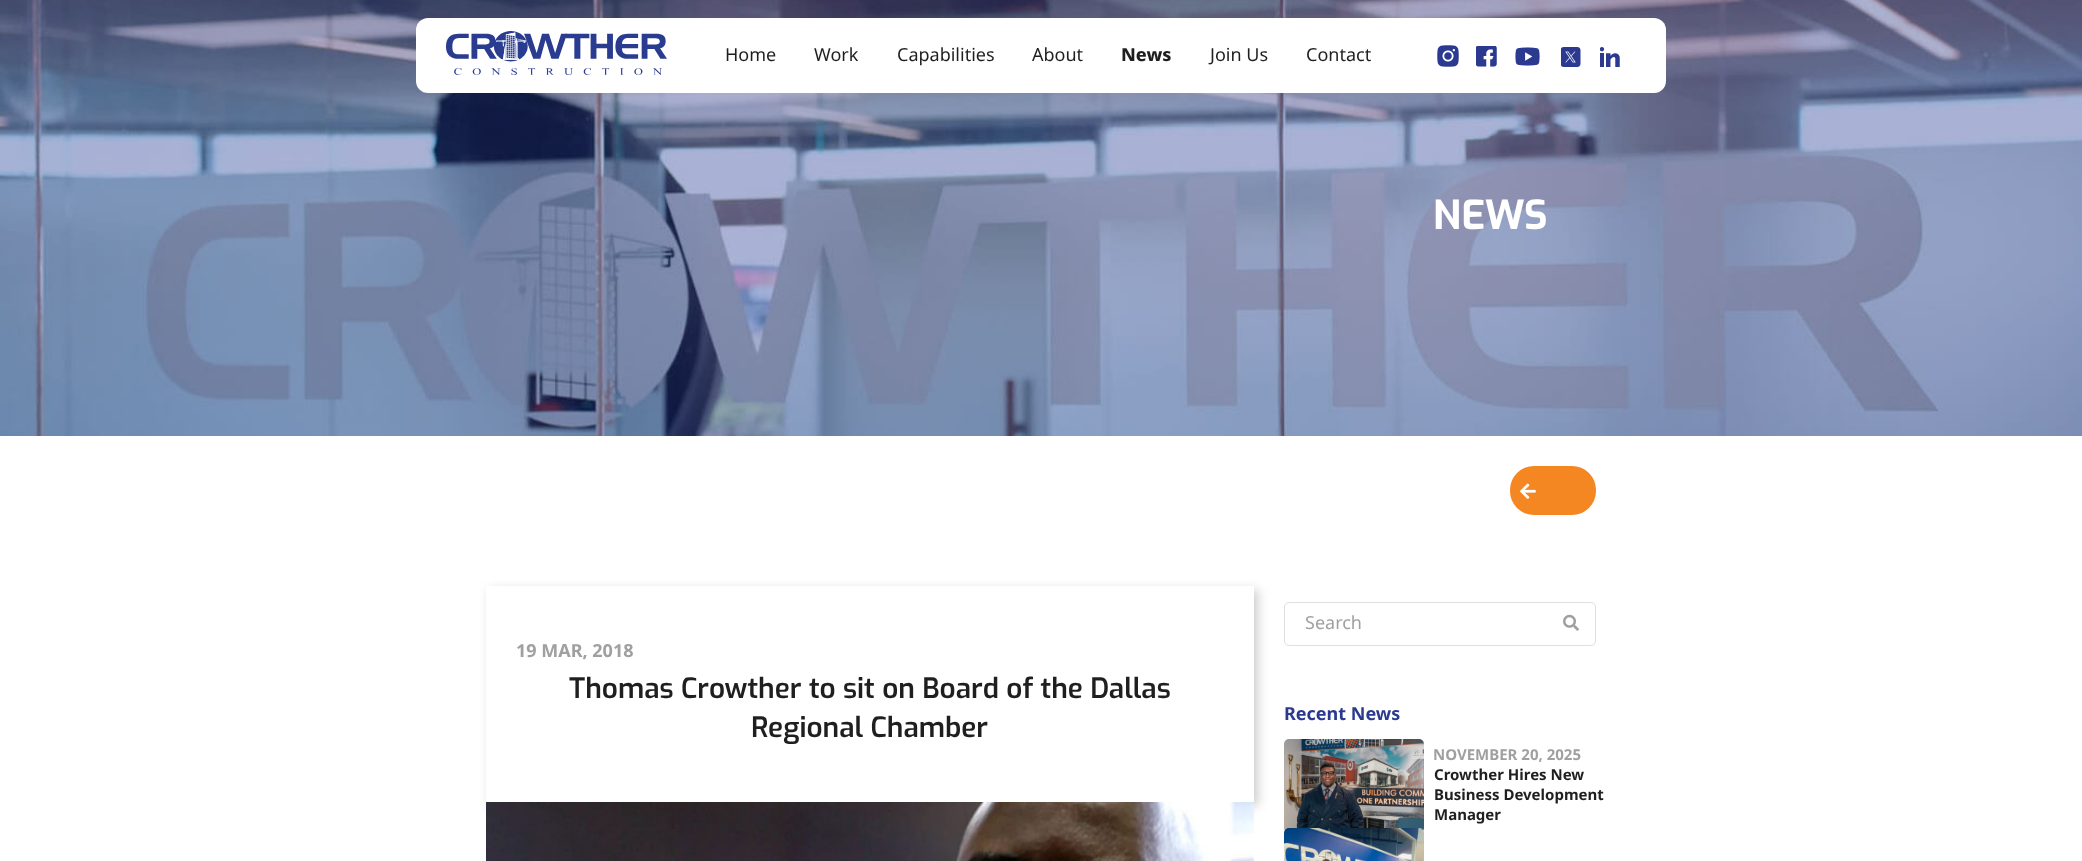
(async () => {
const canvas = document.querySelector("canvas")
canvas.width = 2082
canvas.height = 861
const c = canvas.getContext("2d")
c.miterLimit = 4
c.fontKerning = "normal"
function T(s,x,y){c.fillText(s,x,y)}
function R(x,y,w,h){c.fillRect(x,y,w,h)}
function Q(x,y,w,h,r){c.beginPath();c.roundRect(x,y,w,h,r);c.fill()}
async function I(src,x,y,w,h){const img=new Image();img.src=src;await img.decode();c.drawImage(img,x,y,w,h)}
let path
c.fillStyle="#fff"
R(0,0,2082,861)
await I("7.png",0,0,2082,436)
Q(416,18,1250,75,12)
await I("1.png",446,31,221,44)
c.font="18px Noto Sans"
c.fillStyle="#1f1f1f"
T("Home",725,61)
T("Work",814,61)
T("Capabilities",897,61)
T("About",1032,61)
c.font="800 18px Noto Sans"
T("News",1121,61)
c.font="18px Noto Sans"
T("Join Us",1210,61)
T("Contact",1306,61)
await I("2.png",1437,45,22,22)
await I("3.png",1476,46,21,21)
await I("4.png",1515,47,25,19)
await I("5.png",1561,47,20,20)
await I("6.png",1600,47,20,20)
c.font="bold 40px Exo"
c.fillStyle="#fff"
T("NEWS",1433,229)
c.fillStyle="#f48722"
Q(1510,466,86,49,24)
await I("8.png",1520,483,16,16)
c.save()
path = new Path2D("M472 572h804v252h-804zm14 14h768v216h-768z")
c.clip(path,"evenodd")
c.fillStyle="#00000033"
c.filter="blur(5.5px)"
c.beginPath()
c.rect(490,590,768,216)
c.fill()
c.filter="none"
c.restore()
c.font="bold 18px Noto Sans"
c.fillStyle="#a0a0a0"
T("19 MAR, 2018",516,657)
c.font="600 28px Exo"
c.fillStyle="#1f1f1f"
T("Thomas Crowther to sit on Board of the Dallas",569,698)
T("Regional Chamber",751,737)
await I("9.png",486,802,768,59)
c.beginPath()
c.roundRect(1284.5,602.5,311,43,4.5)
c.strokeStyle="#dedede"
c.stroke()
c.font="18px Noto Sans"
c.fillStyle="#a0a0a0"
T("Search",1305,629)
await I("10.png",1563,614,16,17)
c.font="bold 18px Noto Sans"
c.fillStyle="#2b3990"
T("Recent News",1284,720)
await I("11.png",1284,739,140,92)
c.font="bold 15px Noto Sans"
c.fillStyle="#a0a0a0"
T("NOVEMBER 20, 2025",1433,760)
c.fillStyle="#1f1f1f"
T("Crowther Hires New",1434,780)
T("Business Development",1434,800)
T("Manager",1434,820)
await I("12.png",1284,828,140,33)
})()
